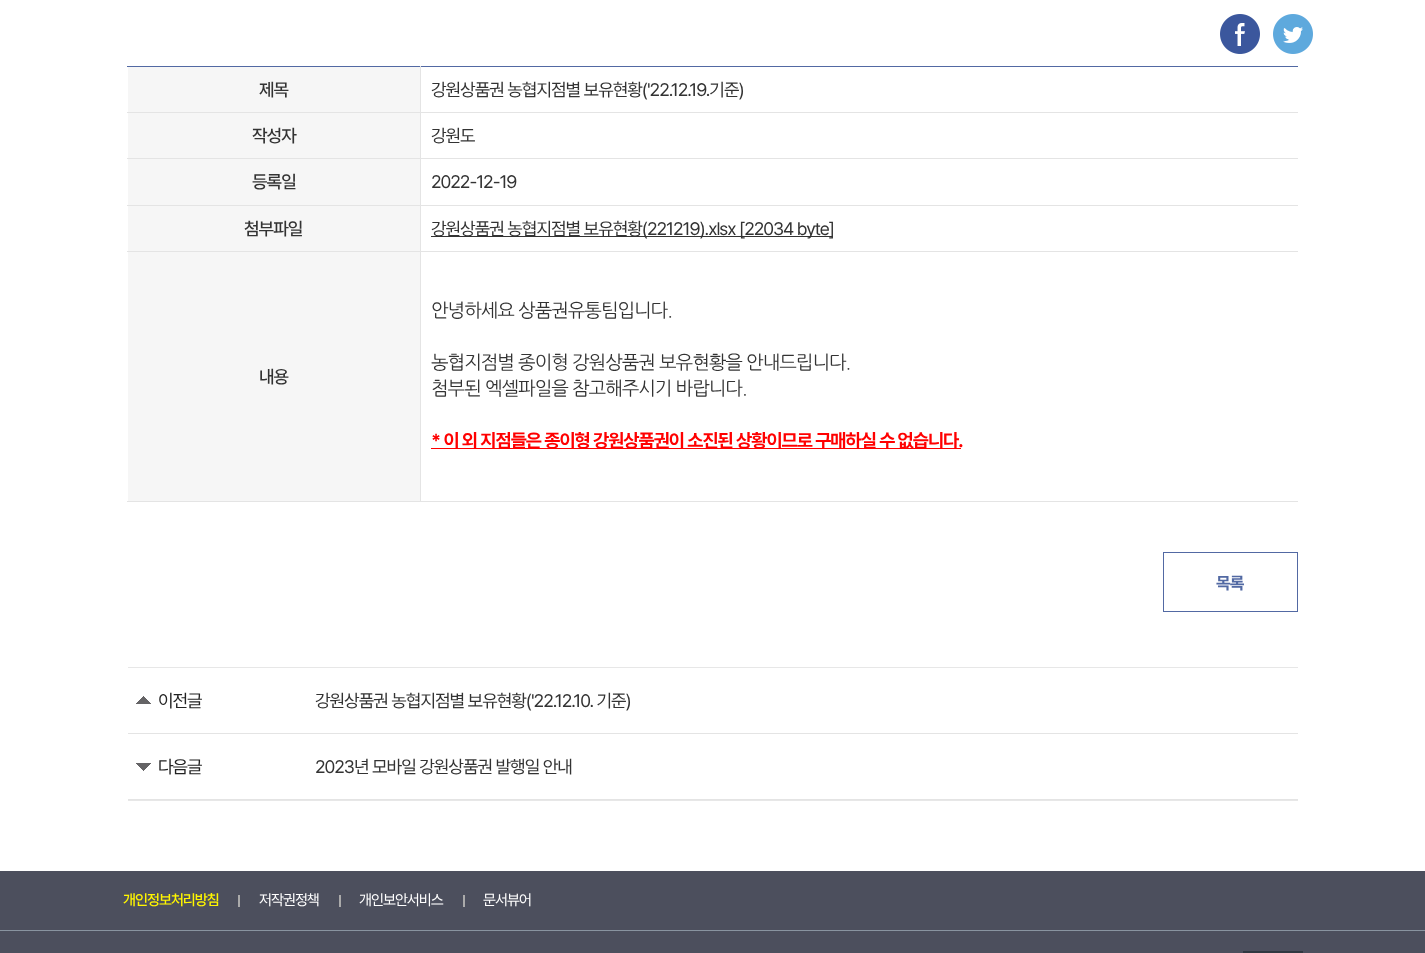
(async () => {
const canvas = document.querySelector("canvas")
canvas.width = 1425
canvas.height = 953
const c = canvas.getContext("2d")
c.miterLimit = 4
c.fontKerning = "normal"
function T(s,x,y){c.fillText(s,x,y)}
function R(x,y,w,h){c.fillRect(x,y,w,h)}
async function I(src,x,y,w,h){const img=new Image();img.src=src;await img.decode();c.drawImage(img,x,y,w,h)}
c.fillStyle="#fff"
R(0,0,1425,953)
await I("1.png",1220,14,40,40)
await I("2.png",1273,14,40,40)
c.fillStyle="#5269a3"
R(127,66,1171,1)
c.fillStyle="#e4e4e4"
R(127,112,1171,1)
c.fillStyle="#f6f6f6"
R(128,67,292,45)
c.letterSpacing="-1px"
c.font="500 18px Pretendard"
c.fillStyle="#333"
T("제목",259,96)
c.font="18px Pretendard"
T("강원상품권 농협지점별 보유현황('22.12.19.기준)",431,96)
c.fillStyle="#e4e4e4"
R(127,158,1171,1)
c.fillStyle="#f6f6f6"
R(128,113,292,45)
c.font="500 18px Pretendard"
c.fillStyle="#333"
T("작성자",252,142)
c.font="18px Pretendard"
T("강원도",431,142)
c.fillStyle="#e4e4e4"
R(127,205,1171,1)
c.fillStyle="#f6f6f6"
R(128,159,292,46)
c.font="500 18px Pretendard"
c.fillStyle="#333"
T("등록일",252,188)
c.font="18px Pretendard"
T("2022-12-19",431,188)
c.fillStyle="#e4e4e4"
R(127,251,1171,1)
c.fillStyle="#f6f6f6"
R(128,206,292,45)
c.font="500 18px Pretendard"
c.fillStyle="#333"
T("첨부파일",244,235)
R(431,236,402,1)
c.font="18px Pretendard"
T("강원상품권 농협지점별 보유현황(221219).xlsx [22034 byte]",431,235)
c.fillStyle="#e4e4e4"
R(127,501,1171,1)
c.fillStyle="#f6f6f6"
R(128,252,292,249)
c.fillStyle="#e4e4e4"
R(420,66,1,436)
c.font="500 18px Pretendard"
c.fillStyle="#333"
T("내용",259,383)
c.font="18.7px NanumGothic"
T("안녕하세요 상품권유통팀입니다.",431,317)
T("농협지점별 종이형 강원상품권 보유현황을 안내드립니다.",431,369)
T("첨부된 엑셀파일을 참고해주시기 바랍니다.",431,395)
c.fillStyle="#f00"
R(431,448,530,1)
c.font="bold 18.7px Pretendard"
T("* 이 외 지점들은 종이형 강원상품권이 소진된 상황이므로 구매하실 수 없습니다.",431,447)
c.strokeStyle="#5269a3"
c.strokeRect(1163.5,552.5,134,59)
c.font="bold 17px Pretendard"
c.fillStyle="#5269a3"
T("목록",1216,589)
c.fillStyle="#e7e7e7"
R(128,667,1170,1)
R(128,800,1170,1)
c.fillStyle="#e4e4e4"
R(128,733,1170,1)
await I("3.png",136,696,15,8)
c.font="18px Pretendard"
c.fillStyle="#222"
T("이전글",158,707)
c.fillStyle="#333"
T("강원상품권 농협지점별 보유현황('22.12.10. 기준)",315,707)
c.fillStyle="#e4e4e4"
R(128,799,1170,1)
await I("4.png",136,763,15,8)
c.fillStyle="#222"
T("다음글",158,773)
c.fillStyle="#333"
T("2023년 모바일 강원상품권 발행일 안내",315,773)
c.fillStyle="#4c4f5d"
R(0,871,1425,59)
c.fillStyle="#8994a0"
R(0,930,1425,1)
c.font="500 15px Pretendard"
c.fillStyle="#fff600"
T("개인정보처리방침",123,905)
c.fillStyle="#aaa"
R(238,895,2,12)
c.font="15px Pretendard"
c.fillStyle="#fff"
T("저작권정책",259,905)
c.fillStyle="#aaa"
R(339,895,2,12)
c.fillStyle="#fff"
T("개인보안서비스",359,905)
c.fillStyle="#aaa"
R(463,895,2,12)
c.fillStyle="#fff"
T("문서뷰어",483,905)
c.fillStyle="#4c4f5d"
R(0,931,1425,22)
c.fillStyle="#303841"
R(1243,951,60,2)
})()
